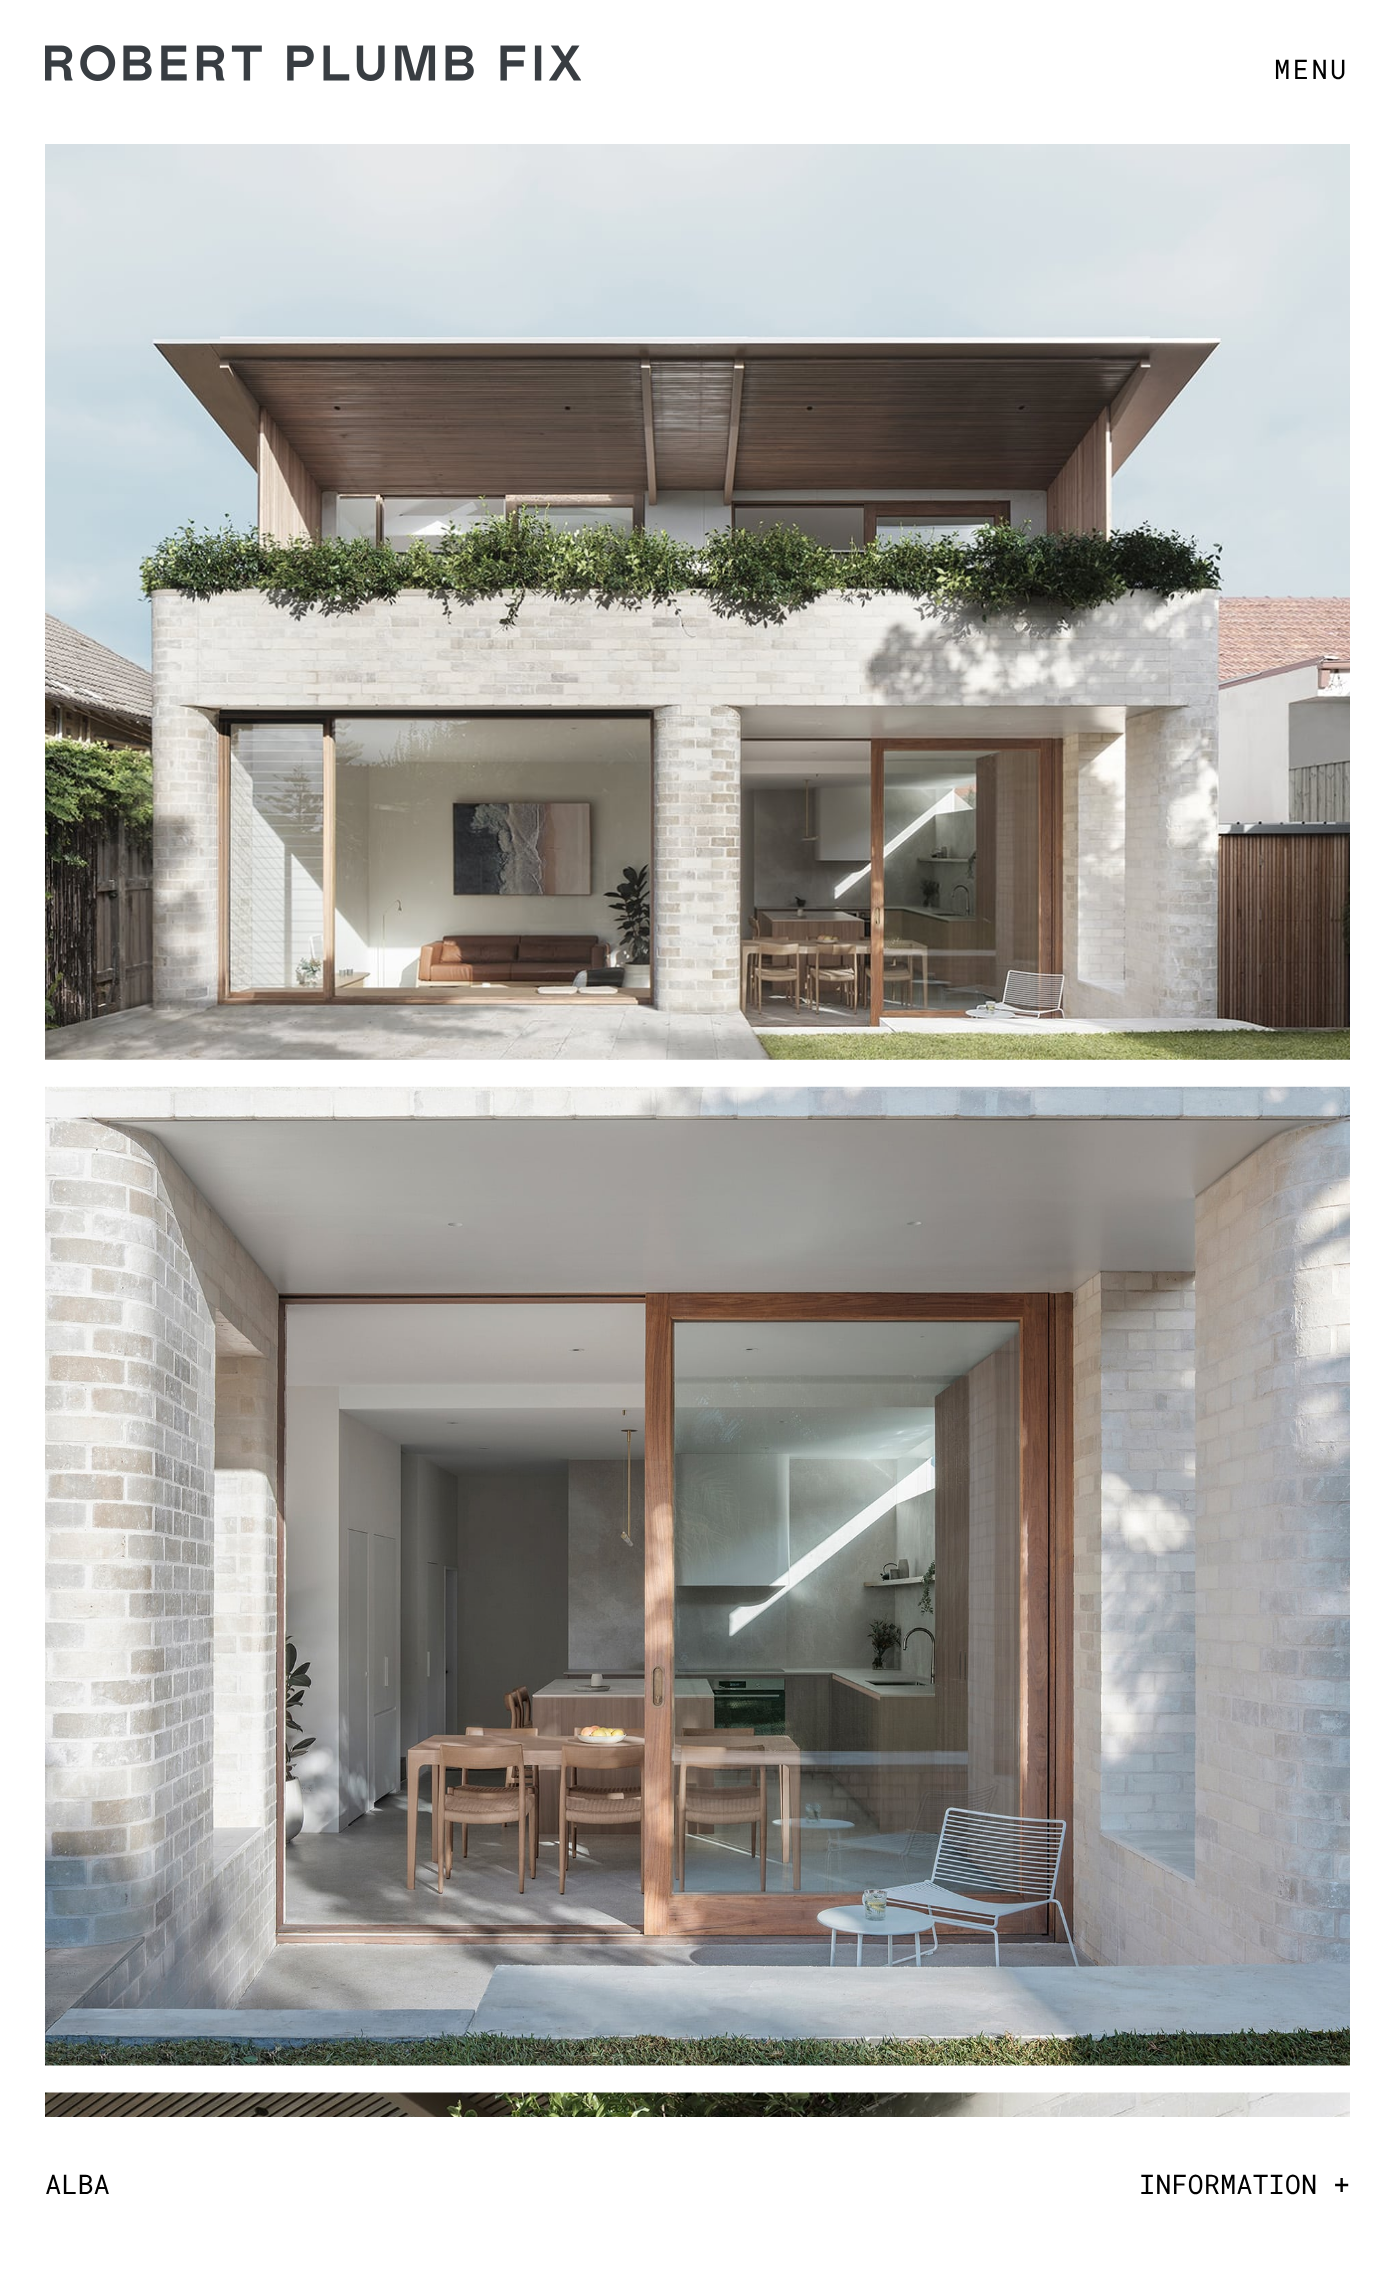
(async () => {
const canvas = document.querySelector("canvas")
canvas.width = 1395
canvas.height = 2291
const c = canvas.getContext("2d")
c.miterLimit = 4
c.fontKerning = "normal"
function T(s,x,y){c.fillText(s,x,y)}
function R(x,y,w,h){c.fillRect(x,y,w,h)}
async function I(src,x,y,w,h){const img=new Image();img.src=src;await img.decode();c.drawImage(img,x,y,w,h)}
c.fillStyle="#fff"
R(0,0,1395,2291)
await I("1.png",45,45,536,36)
c.letterSpacing="2.5px"
c.font="27px Roboto Mono"
c.fillStyle="#000"
T("MENU",1274,79)
await I("2.png",45,144,1305,916)
await I("3.png",45,1086,1305,980)
await I("4.png",45,2092,1305,25)
c.letterSpacing="0px"
T("ALBA",45,2194)
T("INFORMATION +",1139,2194)
})()
